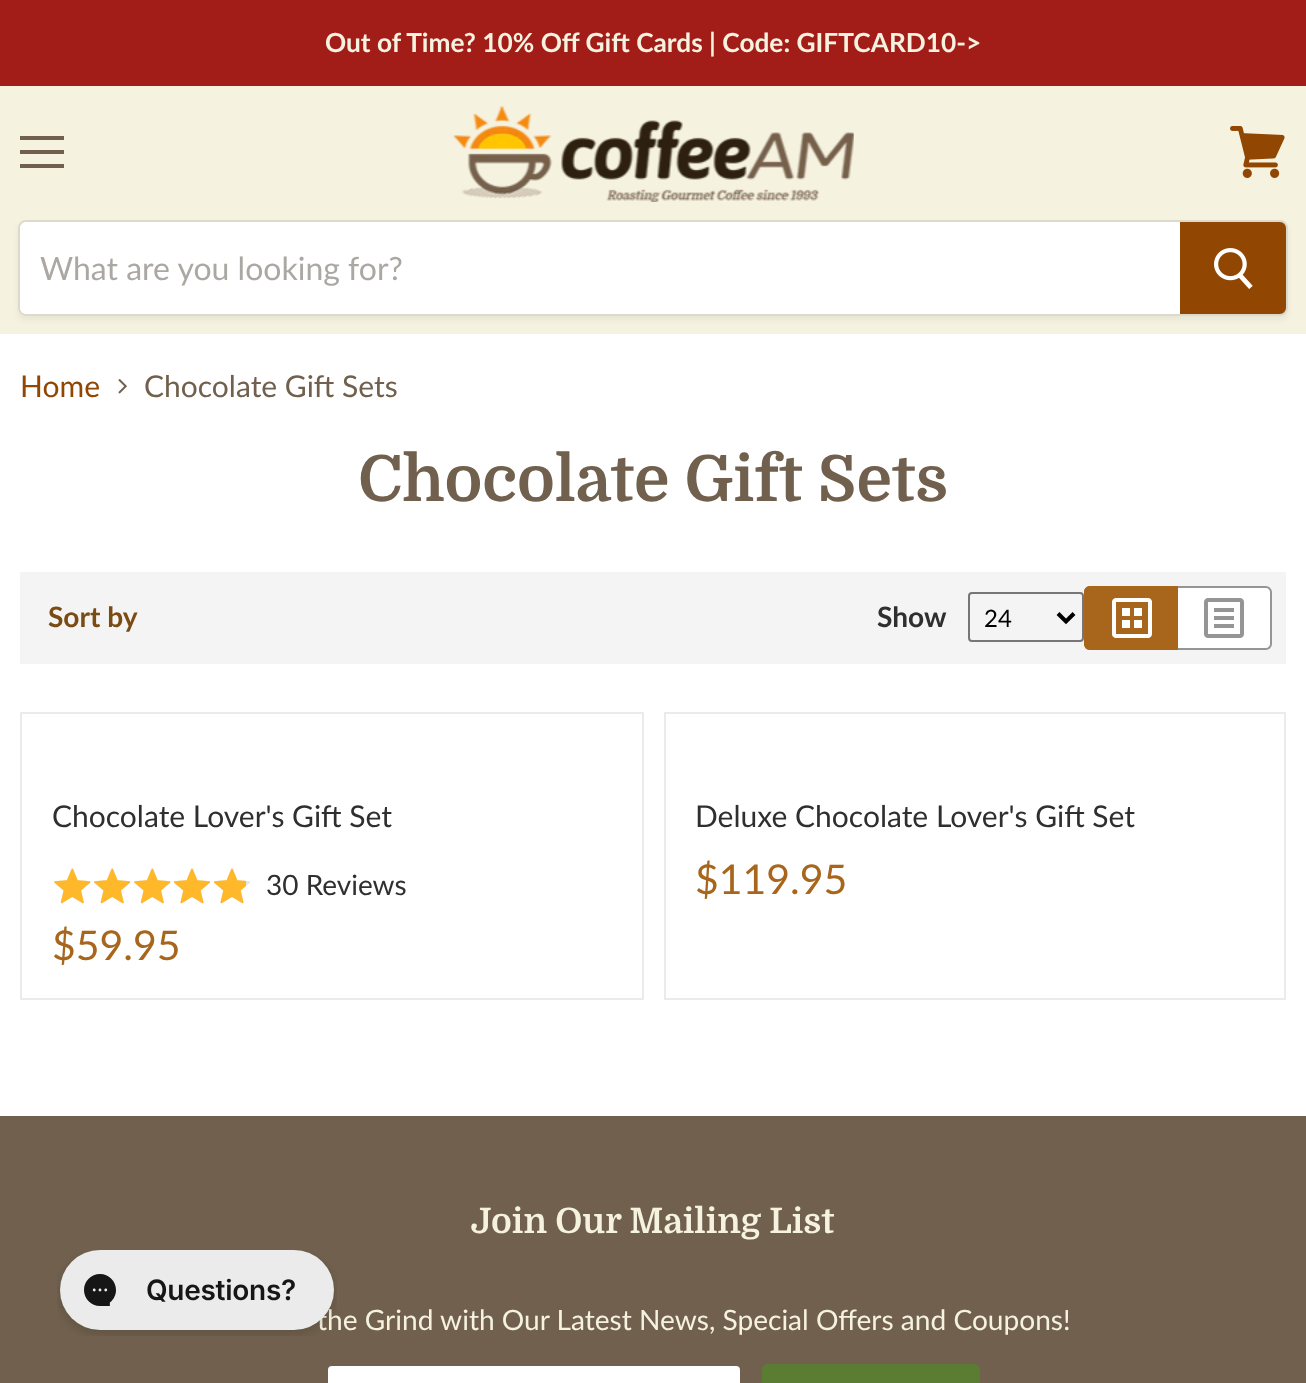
(async () => {
const canvas = document.querySelector("canvas")
canvas.width = 1306
canvas.height = 1383
const c = canvas.getContext("2d")
c.miterLimit = 4
c.fontKerning = "normal"
function T(s,x,y){c.fillText(s,x,y)}
function R(x,y,w,h){c.fillRect(x,y,w,h)}
async function I(src,x,y,w,h){const img=new Image();img.src=src;await img.decode();c.drawImage(img,x,y,w,h)}
let path
c.fillStyle="#fff"
R(0,0,1306,1383)
c.fillStyle="#a31d18"
R(0,0,1306,86)
c.font="bold 26.25px Lato"
c.fillStyle="#f5f2e0"
T("Out of Time? 10% Off Gift Cards | Code: GIFTCARD10->",325,52)
R(0,86,1306,248)
c.fillStyle="#70604d"
R(20,136,44,4)
R(20,150,44,4)
R(20,164,44,4)
await I("1.png",1230,126,55,52)
await I("2.png",453,106,401,96)
c.save()
path = new Path2D("M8 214h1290v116h-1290zm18 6h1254c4.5 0 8 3.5 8 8v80c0 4.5-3.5 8-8 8h-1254c-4.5 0-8-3.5-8-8v-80c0-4.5 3.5-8 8-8z")
c.clip(path,"evenodd")
c.fillStyle="#7f7f7f1c"
c.filter="blur(3px)"
c.beginPath()
c.roundRect(18,224,1270,96,8)
c.fill()
c.filter="none"
c.restore()
c.beginPath()
c.roundRect(19,221,1268,94,7)
c.strokeStyle="#7f7f7f33"
c.lineWidth=2
c.stroke()
c.fillStyle="#fff"
c.beginPath()
c.roundRect(20,222,1160,92,[6,0,0,6])
c.fill()
c.font="32px Lato"
c.fillStyle="#aba8a3"
T("What are you looking for?",40,280)
c.fillStyle="#914701"
c.beginPath()
c.roundRect(1181,223,104,90,[0,5,5,0])
c.fill()
c.strokeStyle="#914701"
c.stroke()
await I("3.png",1214,248,39,41)
c.font="30px Lato"
T("Home",20,397)
await I("4.png",118,378,9,16)
c.fillStyle="#70604d"
T("Chocolate Gift Sets",144,397)
c.font="bold 63.75px Domine"
T("Chocolate Gift Sets",358,501)
c.fillStyle="#f4f4f4"
R(20,572,1266,92)
c.font="bold 28.1px Lato"
c.fillStyle="#7b4b14"
T("Sort by",48,627)
c.fillStyle="#2f2f2f"
T("Show",877,627)
c.beginPath()
c.roundRect(969,593,114,48,3)
c.strokeStyle="#767676"
c.stroke()
path = new Path2D("M1058 613.5l8 8l8-8")
c.strokeStyle="#000"
c.lineWidth=4
c.stroke(path)
c.font="24px Lato"
c.fillStyle="#000"
T("24",984,627)
c.fillStyle="#a7661b"
c.beginPath()
c.roundRect(1084,586,94,64,[6,0,0,6])
c.fill()
path = new Path2D("M1090 586h88v64h-88c-3 0-6-3-6-6v-52c0-3 3-6 6-6zm0 2h88v60h-88c-2 0-4-2-4-4v-52c0-2 2-4 4-4z")
c.fill(path,"evenodd")
await I("5.png",1112,598,40,40)
c.fillStyle="#fff"
c.beginPath()
c.roundRect(1178,586,94,64,[0,6,6,0])
c.fill()
c.fillStyle="#959595"
path = new Path2D("M1178 586h88c3 0 6 3 6 6v52c0 3-3 6-6 6h-88zm0 2h88c2 0 4 2 4 4v52c0 2-2 4-4 4h-88z")
c.fill(path,"evenodd")
await I("6.png",1204,598,40,40)
c.strokeStyle="#ebebeb"
c.lineWidth=2
c.strokeRect(21,713,622,286)
c.font="30px Lato"
c.fillStyle="#2f2f2f"
T("Chocolate Lover's Gift Set",52,827)
await I("7.png",54,868,196,36)
await I("8.png",54,868,192,36)
c.font="28px Lato"
T("30 Reviews",266,895)
c.font="41px Lato"
c.fillStyle="#a7661b"
T("$59.95",52,960)
c.strokeRect(665,713,620,286)
c.font="30px Lato"
c.fillStyle="#2f2f2f"
T("Deluxe Chocolate Lover's Gift Set",695,827)
c.font="41px Lato"
c.fillStyle="#a7661b"
T("$119.95",695,894)
c.fillStyle="#70604d"
R(0,1116,1306,267)
c.font="28.1px Lato"
c.fillStyle="#f5f2e0"
T("the Grind with Our Latest News, Special Offers and Coupons!",317,1330)
await I("9.png",57,1250,280,86)
c.font="bold 35px Domine"
T("Join Our Mailing List",471,1233)
c.fillStyle="#fff"
c.beginPath()
c.roundRect(327,1365,414,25,5)
c.fill()
c.strokeStyle="#70604d"
c.stroke()
c.fillStyle="#5b7d33"
c.beginPath()
c.roundRect(763,1365,216,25,5)
c.fill()
c.strokeStyle="#5b7d33"
c.stroke()
})()
